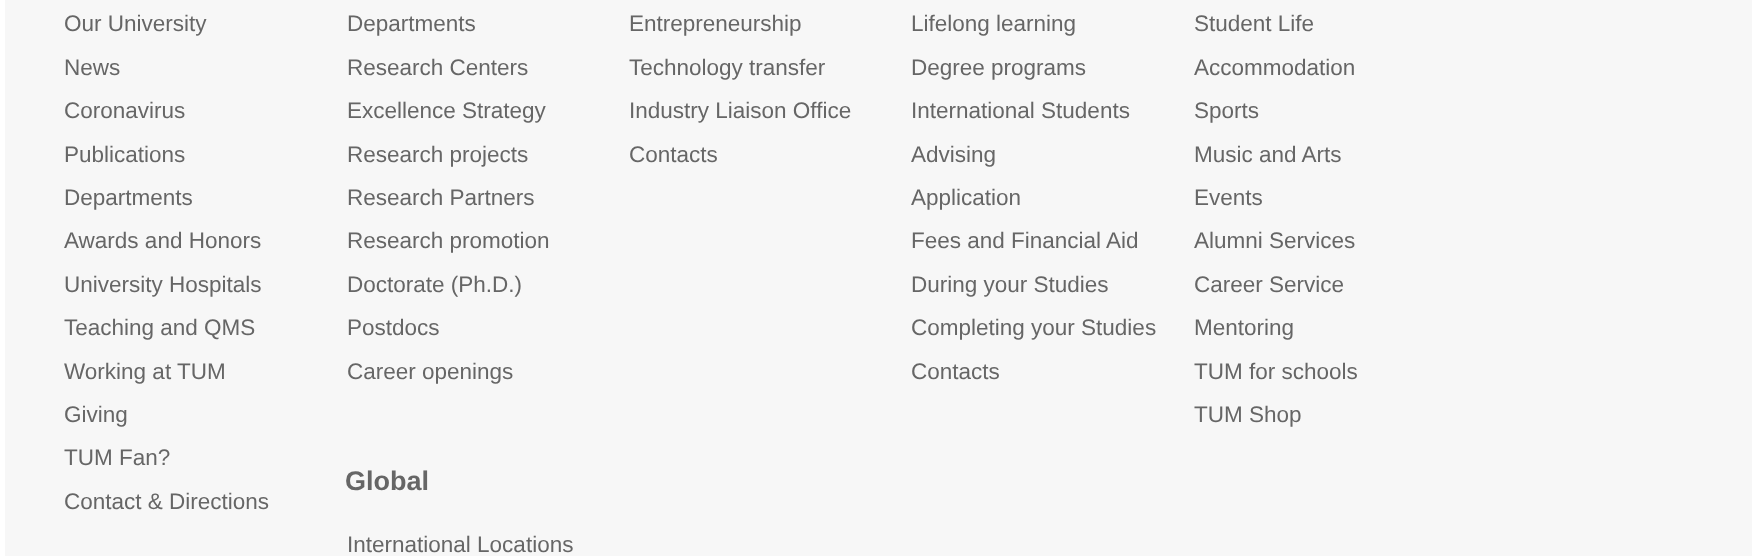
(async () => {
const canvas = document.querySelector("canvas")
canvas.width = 1756
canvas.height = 556
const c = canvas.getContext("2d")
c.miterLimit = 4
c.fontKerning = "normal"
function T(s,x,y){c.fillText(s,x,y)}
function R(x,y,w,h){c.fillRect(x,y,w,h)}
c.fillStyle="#fff"
R(0,0,1756,556)
c.fillStyle="#f7f7f7"
R(5,0,1747,556)
c.font="22.5px Liberation Sans"
c.fillStyle="#666"
T("Our University",64,31)
T("News",64,75)
T("Coronavirus",64,118)
T("Publications",64,162)
T("Departments",64,205)
T("Awards and Honors",64,248)
T("University Hospitals",64,292)
T("Teaching and QMS",64,335)
T("Working at TUM",64,379)
T("Giving",64,422)
T("TUM Fan?",64,465)
T("Contact & Directions",64,509)
T("Departments",347,31)
T("Research Centers",347,75)
T("Excellence Strategy",347,118)
T("Research projects",347,162)
T("Research Partners",347,205)
T("Research promotion",347,248)
T("Doctorate (Ph.D.)",347,292)
T("Postdocs",347,335)
T("Career openings",347,379)
T("Entrepreneurship",629,31)
T("Technology transfer",629,75)
T("Industry Liaison Office",629,118)
T("Contacts",629,162)
T("Lifelong learning",911,31)
T("Degree programs",911,75)
T("International Students",911,118)
T("Advising",911,162)
T("Application",911,205)
T("Fees and Financial Aid",911,248)
T("During your Studies",911,292)
T("Completing your Studies",911,335)
T("Contacts",911,379)
T("Student Life",1194,31)
T("Accommodation",1194,75)
T("Sports",1194,118)
T("Music and Arts",1194,162)
T("Events",1194,205)
T("Alumni Services",1194,248)
T("Career Service",1194,292)
T("Mentoring",1194,335)
T("TUM for schools",1194,379)
T("TUM Shop",1194,422)
c.font="bold 27px Liberation Sans"
T("Global",345,490)
c.font="22.5px Liberation Sans"
T("International Locations",347,552)
})()
